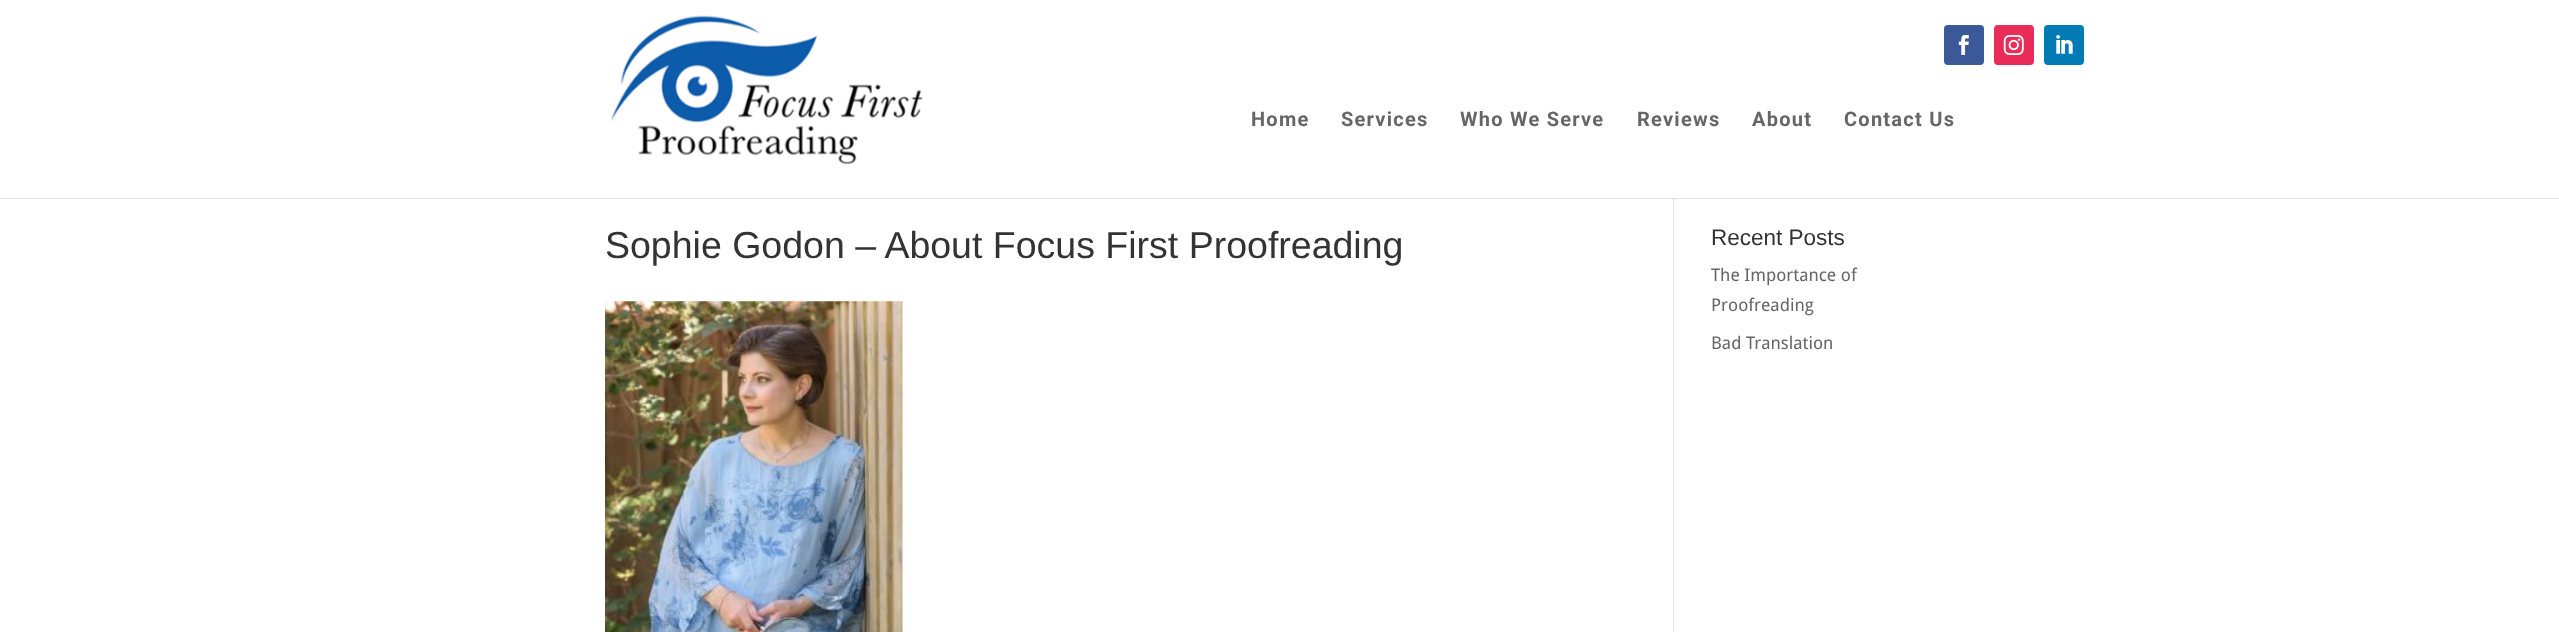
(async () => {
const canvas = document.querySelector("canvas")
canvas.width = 2559
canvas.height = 632
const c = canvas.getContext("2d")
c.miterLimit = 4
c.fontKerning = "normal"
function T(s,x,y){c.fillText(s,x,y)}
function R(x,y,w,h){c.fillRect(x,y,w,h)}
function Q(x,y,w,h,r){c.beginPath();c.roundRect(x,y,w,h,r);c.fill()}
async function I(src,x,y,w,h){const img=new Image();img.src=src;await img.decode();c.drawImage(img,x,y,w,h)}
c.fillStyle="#fff"
R(0,0,2559,632)
c.fillStyle="#e6e6e6"
R(0,198,2559,1)
c.fillStyle="#3b5998"
Q(1944,25,40,40,4)
await I("1.png",1958,35,11,20)
c.fillStyle="#ea2c59"
Q(1994,25,40,40,4)
await I("2.png",2003,35,21,20)
c.fillStyle="#007bb6"
Q(2044,25,40,40,4)
await I("3.png",2056,35,17,19)
await I("4.png",610,15,313,150)
c.letterSpacing="1.25px"
c.font="bold 20px Roboto"
c.fillStyle="#666"
T("Home",1251,126)
T("Services",1341,126)
T("Who We Serve",1460,126)
T("Reviews",1637,126)
T("About",1752,126)
T("Contact Us",1844,126)
c.fillStyle="#e2e2e2"
R(1673,199,1,433)
c.fillStyle="#cbcbcb"
R(1673,198,1,1)
c.letterSpacing="0px"
c.font="37.5px Liberation Sans"
c.fillStyle="#333"
T("Sophie Godon – About Focus First Proofreading",605,258)
await I("5.png",605,301,298,331)
c.font="22.5px Liberation Sans"
T("Recent Posts",1711,245)
c.font="17.5px Droid Sans"
c.fillStyle="#666"
T("The Importance of",1711,281)
T("Proofreading",1711,311)
T("Bad Translation",1711,349)
})()
